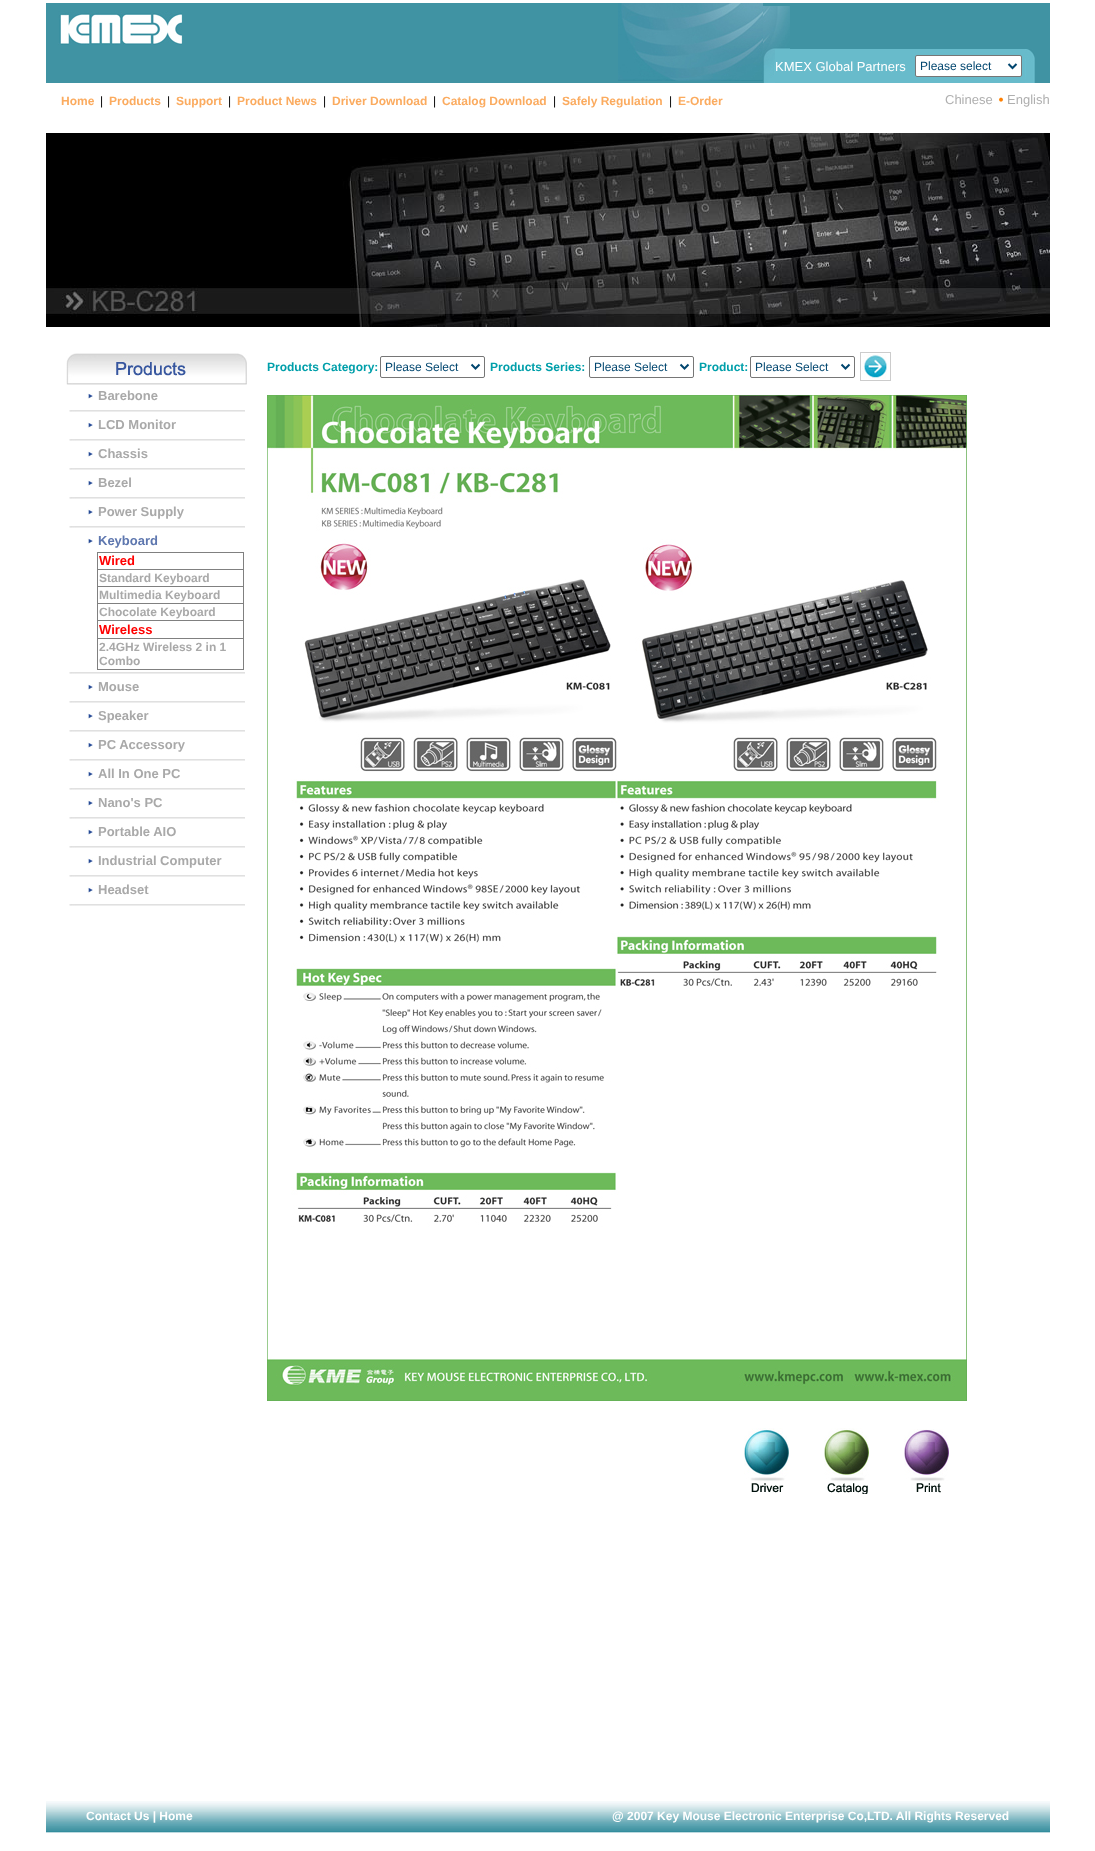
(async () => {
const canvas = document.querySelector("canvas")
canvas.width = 1095
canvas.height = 1851
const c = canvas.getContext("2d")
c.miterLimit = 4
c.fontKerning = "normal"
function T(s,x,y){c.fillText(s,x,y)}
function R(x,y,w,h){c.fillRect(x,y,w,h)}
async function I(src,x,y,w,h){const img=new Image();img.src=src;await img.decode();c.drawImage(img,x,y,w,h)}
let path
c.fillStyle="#fff"
R(0,0,1095,1851)
c.fillStyle="#4093a3"
R(46,3,572,80)
await I("1.png",58,11,125,34)
R(618,81,145,2)
await I("2.png",618,3,145,78)
R(763,3,287,80)
await I("3.png",763,6,27,43)
await I("4.png",763,49,12,34)
c.fillStyle="#68bbcb"
R(775,49,250,34)
c.font="13px Liberation Sans"
c.fillStyle="#fff"
T("KMEX Global Partners",775,71)
c.beginPath()
c.roundRect(915.5,55.5,106,21,1.5)
c.fill()
c.strokeStyle="#767676"
c.stroke()
path = new Path2D("M1008.5 64l4 4l4-4")
c.strokeStyle="#01466f"
c.lineWidth=2
c.stroke(path)
c.font="12px Liberation Sans"
c.fillStyle="#01466f"
T("Please select",920,70)
await I("5.png",1025,49,10,34)
c.font="bold 12px Liberation Sans"
c.fillStyle="#fbab5f"
T("Home",61,105)
c.font="12px Liberation Sans"
c.fillStyle="#000"
T("|",100,105)
c.font="bold 12px Liberation Sans"
c.fillStyle="#fbab5f"
T("Products",109,105)
c.font="12px Liberation Sans"
c.fillStyle="#000"
T("|",167,105)
c.font="bold 12px Liberation Sans"
c.fillStyle="#fbab5f"
T("Support",176,105)
c.font="12px Liberation Sans"
c.fillStyle="#000"
T("|",228,105)
c.font="bold 12px Liberation Sans"
c.fillStyle="#fbab5f"
T("Product News",237,105)
c.font="12px Liberation Sans"
c.fillStyle="#000"
T("|",323,105)
c.font="bold 12px Liberation Sans"
c.fillStyle="#fbab5f"
T("Driver Download",332,105)
c.font="12px Liberation Sans"
c.fillStyle="#000"
T("|",433,105)
c.font="bold 12px Liberation Sans"
c.fillStyle="#fbab5f"
T("Catalog Download",442,105)
c.font="12px Liberation Sans"
c.fillStyle="#000"
T("|",553,105)
c.font="bold 12px Liberation Sans"
c.fillStyle="#fbab5f"
T("Safely Regulation",562,105)
c.font="12px Liberation Sans"
c.fillStyle="#000"
T("|",669,105)
c.font="bold 12px Liberation Sans"
c.fillStyle="#fbab5f"
T("E-Order",678,105)
c.font="13px Liberation Sans"
c.fillStyle="#afafaf"
T("Chinese",945,104)
await I("6.png",998,97,6,6)
T("English",1007,104)
await I("7.png",46,133,1004,194)
c.font="bold 12px Liberation Sans"
c.fillStyle="#009faa"
T("Products Category:",267,371)
c.beginPath()
c.roundRect(380.5,356.5,104,21,1.5)
c.strokeStyle="#767676"
c.lineWidth=1
c.stroke()
path = new Path2D("M471.5 364.5l4 4l4-4")
c.strokeStyle="#01466f"
c.lineWidth=2
c.stroke(path)
c.font="12px Liberation Sans"
c.fillStyle="#01466f"
T("Please Select",385,371)
c.font="bold 12px Liberation Sans"
c.fillStyle="#009faa"
T("Products Series:",490,371)
c.beginPath()
c.roundRect(589.5,356.5,104,21,1.5)
c.strokeStyle="#767676"
c.lineWidth=1
c.stroke()
path = new Path2D("M680.5 364.5l4 4l4-4")
c.strokeStyle="#01466f"
c.lineWidth=2
c.stroke(path)
c.font="12px Liberation Sans"
c.fillStyle="#01466f"
T("Please Select",594,371)
c.font="bold 12px Liberation Sans"
c.fillStyle="#009faa"
T("Product:",699,371)
c.beginPath()
c.roundRect(750.5,356.5,104,21,1.5)
c.strokeStyle="#767676"
c.lineWidth=1
c.stroke()
path = new Path2D("M841.5 364.5l4 4l4-4")
c.strokeStyle="#01466f"
c.lineWidth=2
c.stroke(path)
c.font="12px Liberation Sans"
c.fillStyle="#01466f"
T("Please Select",755,371)
c.strokeStyle="#ccc"
c.lineWidth=1
c.strokeRect(860.5,352.5,30,28)
await I("8.png",862,354,25,25)
await I("9.png",267,395,700,1006)
await I("10.png",744,1428,45,65)
await I("11.png",824,1428,45,66)
await I("12.png",904,1429,45,64)
await I("13.png",66,353,181,32)
await I("14.png",87,393,6,6)
c.font="bold 13px Liberation Sans"
c.fillStyle="#a9a9a9"
T("Barebone",98,400)
await I("15.png",69,410,176,2)
await I("14.png",87,422,6,6)
T("LCD Monitor",98,429)
await I("15.png",69,439,176,2)
await I("14.png",87,451,6,6)
T("Chassis",98,458)
await I("15.png",69,468,176,2)
await I("14.png",87,480,6,6)
T("Bezel",98,487)
await I("15.png",69,497,176,2)
await I("14.png",87,509,6,6)
T("Power Supply",98,516)
await I("15.png",69,526,176,2)
await I("14.png",87,538,6,6)
c.fillStyle="#5e77af"
T("Keyboard",98,545)
c.fillStyle="#808080"
R(97,552,147,1)
R(97,569,147,1)
R(97,586,147,1)
R(97,603,147,1)
R(97,620,147,1)
R(97,638,147,1)
R(243,638,1,32)
R(243,620,1,19)
R(243,603,1,18)
R(243,586,1,18)
R(243,569,1,18)
R(243,552,1,18)
R(97,669,147,1)
R(97,638,1,32)
R(97,620,1,19)
R(97,603,1,18)
R(97,586,1,18)
R(97,569,1,18)
R(97,552,1,18)
c.fillStyle="#f00"
T("Wired",99,565)
c.font="bold 12px Liberation Sans"
c.fillStyle="#a9a9a9"
T("Standard Keyboard",99,582)
T("Multimedia Keyboard",99,599)
T("Chocolate Keyboard",99,616)
c.font="bold 13px Liberation Sans"
c.fillStyle="#f00"
T("Wireless",99,634)
c.font="bold 12px Liberation Sans"
c.fillStyle="#a9a9a9"
T("2.4GHz Wireless 2 in 1",99,651)
T("Combo",99,665)
await I("15.png",69,672,176,2)
await I("14.png",87,684,6,6)
c.font="bold 13px Liberation Sans"
T("Mouse",98,691)
await I("15.png",69,701,176,2)
await I("14.png",87,713,6,6)
T("Speaker",98,720)
await I("15.png",69,730,176,2)
await I("14.png",87,742,6,6)
T("PC Accessory",98,749)
await I("15.png",69,759,176,2)
await I("14.png",87,771,6,6)
T("All In One PC",98,778)
await I("15.png",69,788,176,2)
await I("14.png",87,800,6,6)
T("Nano's PC",98,807)
await I("15.png",69,817,176,2)
await I("14.png",87,829,6,6)
T("Portable AIO",98,836)
await I("15.png",69,846,176,2)
await I("14.png",87,858,6,6)
T("Industrial Computer",98,865)
await I("15.png",69,875,176,2)
await I("14.png",87,887,6,6)
T("Headset",98,894)
await I("15.png",69,904,176,2)
await I("16.png",46,1801,40,32)
await I("17.png",86,1801,195,32)
c.font="bold 12px Liberation Sans"
c.fillStyle="#fff"
T("Contact Us | Home",86,1820)
await I("18.png",281,1801,729,32)
T("@ 2007 Key Mouse Electronic Enterprise Co,LTD. All Rights Reserved",612,1820)
await I("16.png",1010,1801,40,32)
})()
